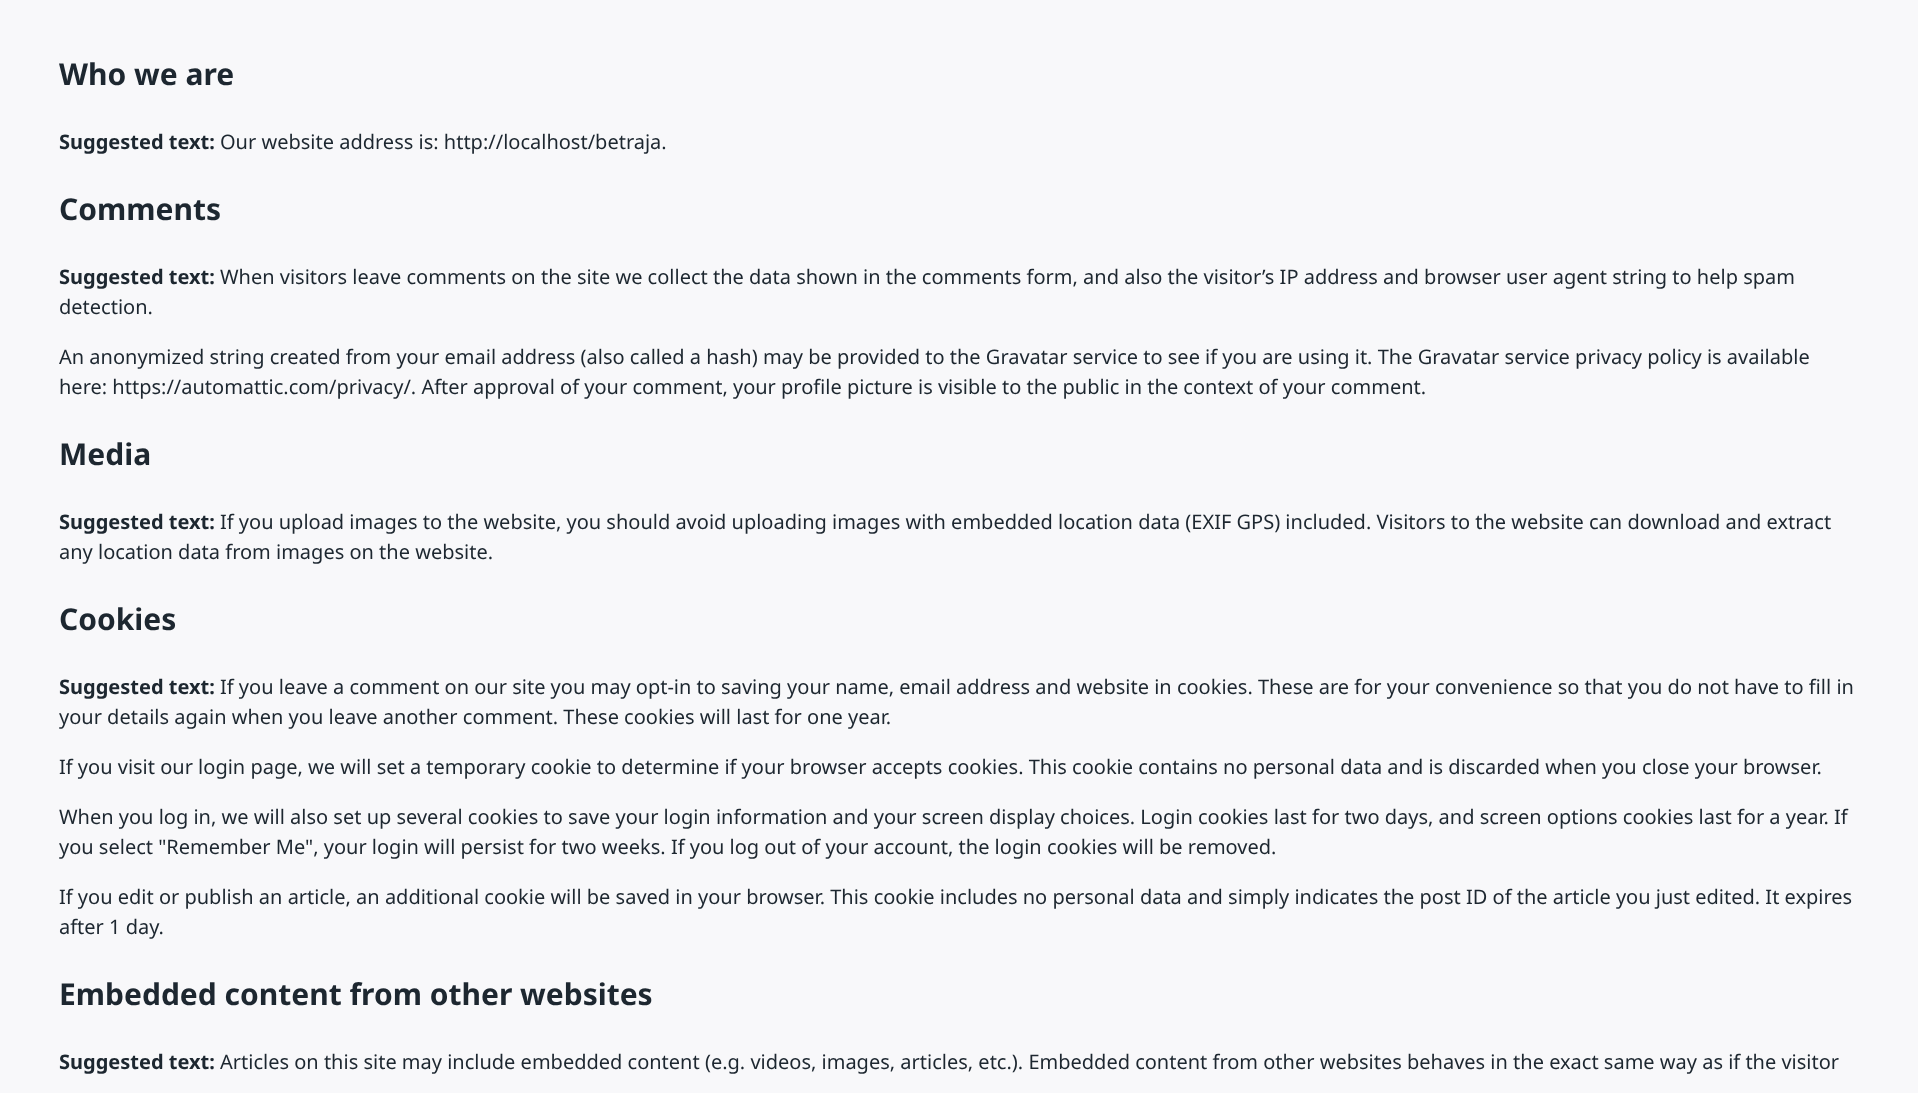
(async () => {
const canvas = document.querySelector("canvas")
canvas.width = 1918
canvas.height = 1093
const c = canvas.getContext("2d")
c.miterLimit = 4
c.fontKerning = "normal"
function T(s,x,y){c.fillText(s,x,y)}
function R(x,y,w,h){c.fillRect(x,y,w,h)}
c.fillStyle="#f8f8fa"
R(0,0,1918,1093)
c.font="bold 30px Noto Sans"
c.fillStyle="#1d2730"
T("Who we are",59,85)
c.font="bold 20px Noto Sans"
T("Suggested text:",59,149)
c.font="20px Noto Sans"
T("Our website address is: http://localhost/betraja.",220,149)
c.font="bold 30px Noto Sans"
T("Comments",59,220)
c.font="bold 20px Noto Sans"
T("Suggested text:",59,284)
c.font="20px Noto Sans"
T("When visitors leave comments on the site we collect the data shown in the comments form, and also the visitor’s IP address and browser user agent string to help spam",220,284)
T("detection.",59,314)
T("An anonymized string created from your email address (also called a hash) may be provided to the Gravatar service to see if you are using it. The Gravatar service privacy policy is available",59,364)
T("here: https://automattic.com/privacy/. After approval of your comment, your profile picture is visible to the public in the context of your comment.",59,394)
c.font="bold 30px Noto Sans"
T("Media",59,465)
c.font="bold 20px Noto Sans"
T("Suggested text:",59,529)
c.font="20px Noto Sans"
T("If you upload images to the website, you should avoid uploading images with embedded location data (EXIF GPS) included. Visitors to the website can download and extract",220,529)
T("any location data from images on the website.",59,559)
c.font="bold 30px Noto Sans"
T("Cookies",59,630)
c.font="bold 20px Noto Sans"
T("Suggested text:",59,694)
c.font="20px Noto Sans"
T("If you leave a comment on our site you may opt-in to saving your name, email address and website in cookies. These are for your convenience so that you do not have to fill in",220,694)
T("your details again when you leave another comment. These cookies will last for one year.",59,724)
T("If you visit our login page, we will set a temporary cookie to determine if your browser accepts cookies. This cookie contains no personal data and is discarded when you close your browser.",59,774)
T("When you log in, we will also set up several cookies to save your login information and your screen display choices. Login cookies last for two days, and screen options cookies last for a year. If",59,824)
T("you select \"Remember Me\", your login will persist for two weeks. If you log out of your account, the login cookies will be removed.",59,854)
T("If you edit or publish an article, an additional cookie will be saved in your browser. This cookie includes no personal data and simply indicates the post ID of the article you just edited. It expires",59,904)
T("after 1 day.",59,934)
c.font="bold 30px Noto Sans"
T("Embedded content from other websites",59,1005)
c.font="bold 20px Noto Sans"
T("Suggested text:",59,1069)
c.font="20px Noto Sans"
T("Articles on this site may include embedded content (e.g. videos, images, articles, etc.). Embedded content from other websites behaves in the exact same way as if the visitor",220,1069)
})()
